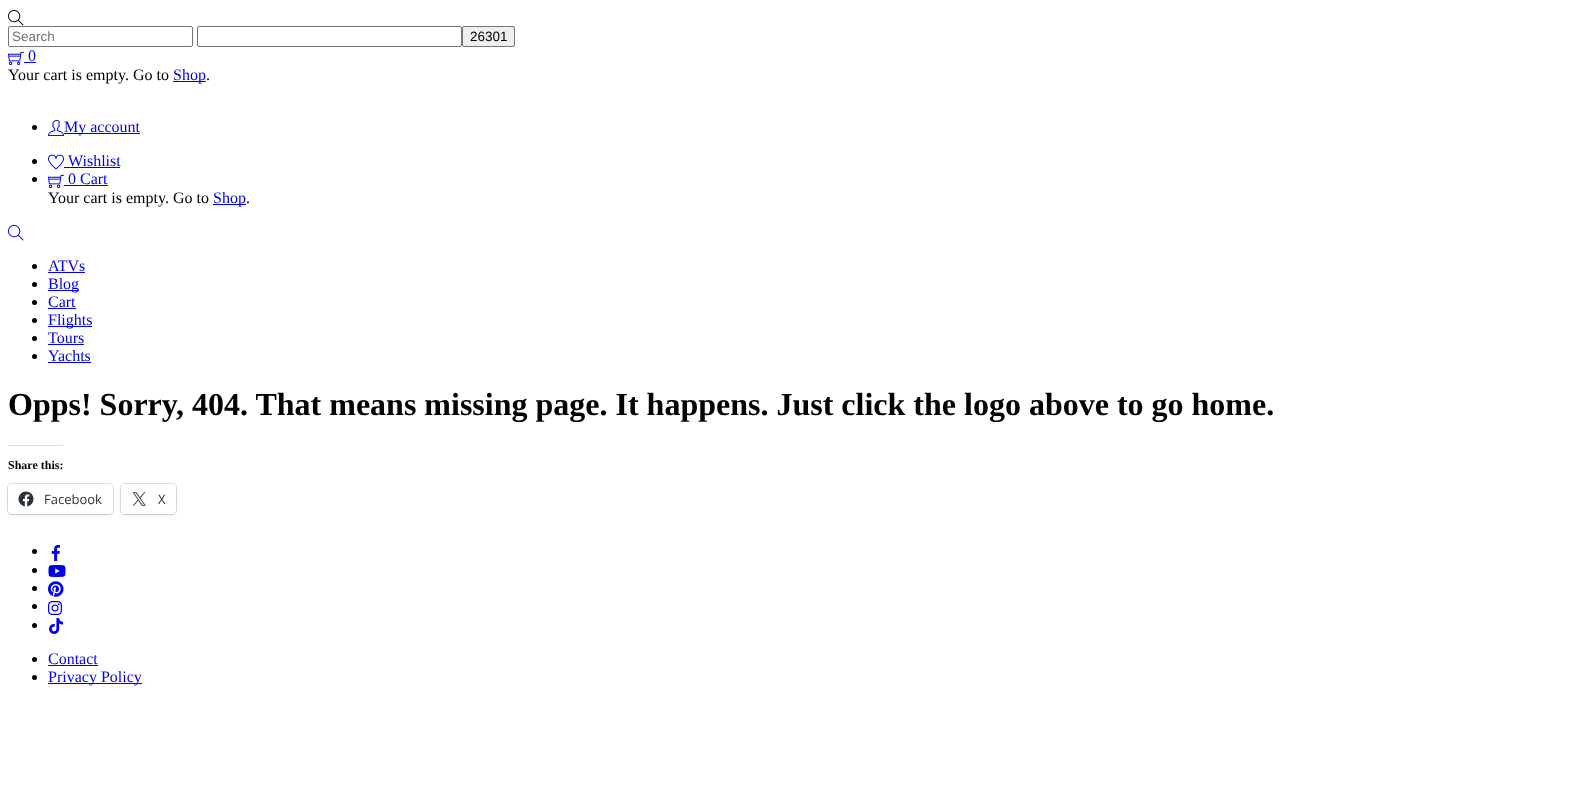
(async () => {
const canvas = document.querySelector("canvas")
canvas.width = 1577
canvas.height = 785
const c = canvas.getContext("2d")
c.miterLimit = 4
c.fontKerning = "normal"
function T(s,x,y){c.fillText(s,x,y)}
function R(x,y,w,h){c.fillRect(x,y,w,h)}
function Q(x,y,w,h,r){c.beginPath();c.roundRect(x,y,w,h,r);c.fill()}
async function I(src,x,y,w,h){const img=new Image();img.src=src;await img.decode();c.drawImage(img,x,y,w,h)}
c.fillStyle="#fff"
R(0,0,1577,785)
await I("1.png",8,10,16,16)
c.beginPath()
c.roundRect(8.5,26.5,184,20,1.5)
c.strokeStyle="#767676"
c.stroke()
c.font="13.5px Liberation Sans"
c.fillStyle="#757575"
T("Search",12,41)
c.beginPath()
c.roundRect(197.5,26.5,264,20,1.5)
c.stroke()
c.fillStyle="#efefef"
c.beginPath()
c.roundRect(462.5,26.5,52,20,1.5)
c.fill()
c.stroke()
c.fillStyle="#000"
T("26301",470,41)
c.font="16px Liberation Serif"
c.fillStyle="#00e"
T("0",28,61)
await I("2.png",8,51,16,14)
R(24,62,12,1)
c.fillStyle="#000"
T("Your cart is empty. Go to",8,80)
c.fillStyle="#00e"
R(173,81,33,1)
T("Shop",173,80)
c.fillStyle="#000"
T(".",206,80)
c.beginPath()
c.arc(34.5,127.5,2.5,0,7)
c.fill()
await I("3.png",48,120,16,16)
c.fillStyle="#00e"
R(64,133,76,1)
T("My account",64,132)
c.fillStyle="#000"
c.beginPath()
c.arc(34.5,161.5,2.5,0,7)
c.fill()
await I("4.png",48,154,16,16)
c.fillStyle="#00e"
T("Wishlist",68,166)
R(64,167,56,1)
c.fillStyle="#000"
c.beginPath()
c.arc(34.5,179.5,2.5,0,7)
c.fill()
await I("2.png",48,174,16,14)
c.fillStyle="#00e"
T("0 Cart",68,184)
R(64,185,44,1)
c.fillStyle="#000"
T("Your cart is empty. Go to",48,203)
c.fillStyle="#00e"
R(213,204,33,1)
T("Shop",213,203)
c.fillStyle="#000"
T(".",246,203)
await I("5.png",8,225,16,16)
c.beginPath()
c.arc(34.5,266.5,2.5,0,7)
c.fill()
c.fillStyle="#00e"
T("ATVs",48,271)
R(48,272,37,1)
c.fillStyle="#000"
c.beginPath()
c.arc(34.5,284.5,2.5,0,7)
c.fill()
c.fillStyle="#00e"
R(48,290,31,1)
T("Blog",48,289)
c.fillStyle="#000"
c.beginPath()
c.arc(34.5,302.5,2.5,0,7)
c.fill()
c.fillStyle="#00e"
T("Cart",48,307)
R(48,308,28,1)
c.fillStyle="#000"
c.beginPath()
c.arc(34.5,320.5,2.5,0,7)
c.fill()
c.fillStyle="#00e"
R(48,326,44,1)
T("Flights",48,325)
c.fillStyle="#000"
c.beginPath()
c.arc(34.5,338.5,2.5,0,7)
c.fill()
c.fillStyle="#00e"
T("Tours",48,343)
R(48,344,36,1)
c.fillStyle="#000"
c.beginPath()
c.arc(34.5,356.5,2.5,0,7)
c.fill()
c.fillStyle="#00e"
T("Yachts",48,361)
R(48,362,43,1)
c.font="bold 32px Liberation Serif"
c.fillStyle="#000"
T("Opps! Sorry, 404. That means missing page. It happens. Just click the logo above to go home.",8,415)
c.fillStyle="#dcdcde"
R(8,445,55,1)
c.font="bold 12px Liberation Serif"
c.fillStyle="#000"
T("Share this:",8,469)
c.beginPath()
c.roundRect(7.5,483.5,106,31,4.5)
c.strokeStyle="#e0e0e0"
c.stroke()
c.fillStyle="#0000001f"
c.filter="blur(1px)"
c.beginPath()
c.roundRect(8,485,105,30,4)
c.fill()
c.filter="none"
c.fillStyle="#fff"
Q(8,484,105,30,4)
await I("6.png",18,491,16,16)
c.font="13px Open Sans"
c.fillStyle="#2c3338"
T("Facebook",44,504)
c.beginPath()
c.roundRect(120.5,483.5,56,31,4.5)
c.stroke()
c.fillStyle="#0000001f"
c.filter="blur(1px)"
c.beginPath()
c.roundRect(121,485,55,30,4)
c.fill()
c.filter="none"
c.fillStyle="#fff"
Q(121,484,55,30,4)
await I("7.png",132,492,14,14)
c.fillStyle="#2c3338"
T("X",158,504)
c.fillStyle="#000"
c.beginPath()
c.arc(34.5,551.5,2.5,0,7)
c.fill()
await I("8.png",51,545,9,16)
c.beginPath()
c.arc(34.5,570.5,2.5,0,7)
c.fill()
await I("9.png",48,565,18,12)
c.beginPath()
c.arc(34.5,588.5,2.5,0,7)
c.fill()
await I("10.png",48,581,16,16)
c.beginPath()
c.arc(34.5,606.5,2.5,0,7)
c.fill()
await I("11.png",48,601,14,14)
c.beginPath()
c.arc(34.5,625.5,2.5,0,7)
c.fill()
await I("12.png",49,618,14,16)
c.beginPath()
c.arc(34.5,659.5,2.5,0,7)
c.fill()
c.font="16px Liberation Serif"
c.fillStyle="#00e"
T("Contact",48,664)
R(48,665,50,1)
c.fillStyle="#000"
c.beginPath()
c.arc(34.5,677.5,2.5,0,7)
c.fill()
c.fillStyle="#00e"
R(48,683,94,1)
T("Privacy Policy",48,682)
})()
